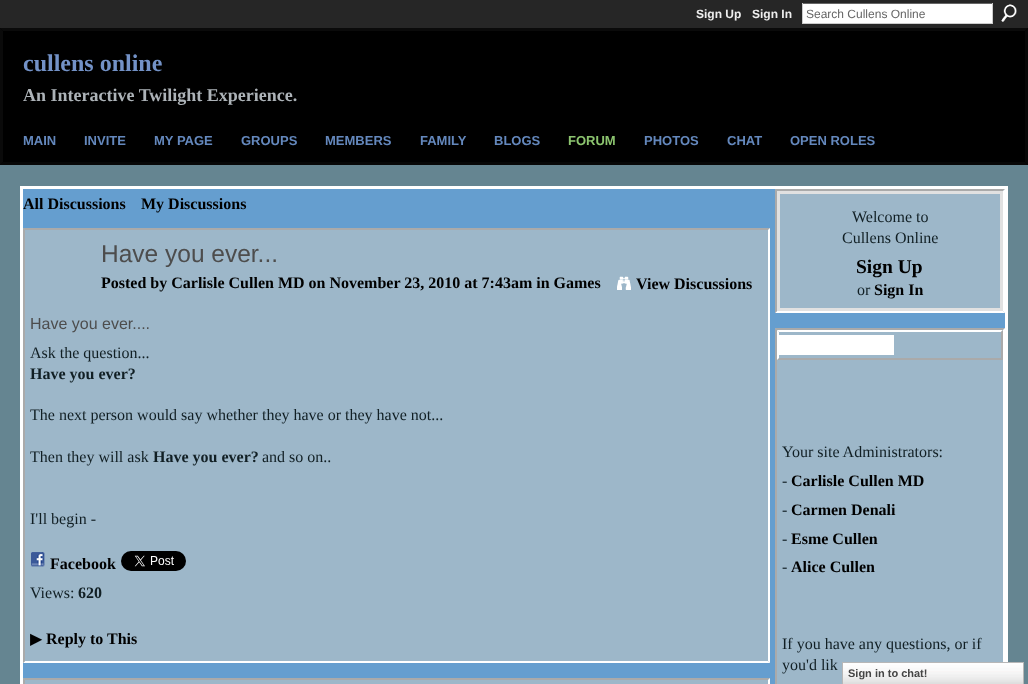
(async () => {
const canvas = document.querySelector("canvas")
canvas.width = 1028
canvas.height = 684
const c = canvas.getContext("2d")
c.miterLimit = 4
c.fontKerning = "normal"
function T(s,x,y){c.fillText(s,x,y)}
function R(x,y,w,h){c.fillRect(x,y,w,h)}
async function I(src,x,y,w,h){const img=new Image();img.src=src;await img.decode();c.drawImage(img,x,y,w,h)}
let path
c.fillStyle="#658591"
R(0,0,1028,684)
c.fillStyle="#262626"
R(0,0,1028,28)
c.font="bold 12px Liberation Sans"
c.fillStyle="#eee"
T("Sign Up",696,18)
T("Sign In",752,18)
c.fillStyle="#fff"
R(803,4,189,19)
c.fillStyle="#666"
R(802,3,191,1)
c.fillStyle="#ccc"
R(992,3,1,21)
R(802,23,191,1)
R(802,3,1,21)
c.font="12px Liberation Sans"
c.fillStyle="#666"
T("Search Cullens Online",806,18)
await I("1.png",1001,4,16,18)
c.fillStyle="#000"
R(0,28,1028,137)
c.fillStyle="#0a0a0a"
path = new Path2D("M0 28h1028l-3 3h-1022z")
c.fill(path)
c.fillStyle="#070707"
path = new Path2D("M1028 28v137l-3-3v-131z")
c.fill(path)
path = new Path2D("M1028 165h-1028l3-3h1022z")
c.fill(path)
c.fillStyle="#0a0a0a"
path = new Path2D("M0 165v-137l3 3v131z")
c.fill(path)
c.font="bold 24px Liberation Serif"
c.fillStyle="#7392c7"
T("cullens online",23,71)
c.font="bold 18px Liberation Serif"
c.fillStyle="#adb3b8"
T("An Interactive Twilight Experience.",23,101)
c.font="bold 13px Liberation Sans"
c.fillStyle="#6488bd"
T("MAIN",23,145)
T("INVITE",84,145)
T("MY PAGE",154,145)
T("GROUPS",241,145)
T("MEMBERS",325,145)
T("FAMILY",420,145)
T("BLOGS",494,145)
c.fillStyle="#8cc46f"
T("FORUM",568,145)
c.fillStyle="#6488bd"
T("PHOTOS",644,145)
T("CHAT",727,145)
T("OPEN ROLES",790,145)
c.fillStyle="#659ecf"
c.beginPath()
c.rect(21.5,187.5,985,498)
c.fill()
c.strokeStyle="#fff"
c.lineWidth=3
c.stroke()
c.font="bold 16px Liberation Serif"
c.fillStyle="#000"
T("All Discussions",23,209)
T("My Discussions",141,209)
c.fillStyle="#9db7c9"
R(23,228,747,435)
c.fillStyle="#aaa"
path = new Path2D("M23 228h747l-2 2h-743z")
c.fill(path)
c.fillStyle="#fff"
path = new Path2D("M770 228v435l-2-2v-431z")
c.fill(path)
path = new Path2D("M770 663h-747l2-2h743z")
c.fill(path)
c.fillStyle="#aaa"
path = new Path2D("M23 663v-435l2 2v431z")
c.fill(path)
c.font="24.5px Liberation Sans"
c.fillStyle="#4d4d4d"
T("Have you ever...",101,262)
c.font="bold 16px Liberation Serif"
c.fillStyle="#000"
T("Posted by Carlisle Cullen MD on November 23, 2010 at 7:43am in Games",101,288)
await I("2.png",617,276,14,14)
T("View Discussions",636,289)
c.font="16px Liberation Sans"
c.fillStyle="#4d4d4d"
T("Have you ever....",30,329)
c.font="16px Liberation Serif"
c.fillStyle="#111f24"
T("Ask the question...",30,358)
c.font="bold 16px Liberation Serif"
T("Have you ever?",30,379)
c.font="16px Liberation Serif"
T("The next person would say whether they have or they have not...",30,420)
T("Then they will ask",30,462)
c.font="bold 16px Liberation Serif"
T("Have you ever?",153,462)
c.font="16px Liberation Serif"
T("and so on..",262,462)
T("I'll begin -",30,524)
await I("3.png",31,552,14,15)
c.font="bold 16px Liberation Serif"
c.fillStyle="#000"
T("Facebook",50,569)
await I("4.png",121,551,65,20)
c.font="16px Liberation Serif"
c.fillStyle="#111f24"
T("Views:",30,598)
c.font="bold 16px Liberation Serif"
T("620",78,598)
c.font="16px DejaVu Sans"
c.fillStyle="#000"
T("▶",30,644)
c.font="bold 16px Liberation Serif"
T("Reply to This",46,644)
c.fillStyle="#9db7c9"
R(23,678,747,6)
c.fillStyle="#aaa"
path = new Path2D("M23 678h747l-2 2h-743z")
c.fill(path)
c.fillStyle="#fff"
path = new Path2D("M770 678v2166l-2-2v-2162z")
c.fill(path)
c.fillStyle="#aaa"
path = new Path2D("M23 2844v-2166l2 2v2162z")
c.fill(path)
c.fillStyle="#9db7c9"
R(775,189,230,124)
c.fillStyle="#aaa"
path = new Path2D("M775 189h230l-2 2h-226z")
c.fill(path)
c.fillStyle="#fff"
path = new Path2D("M1005 189v124l-2-2v-120z")
c.fill(path)
path = new Path2D("M1005 313h-230l2-2h226z")
c.fill(path)
c.fillStyle="#aaa"
path = new Path2D("M775 313v-124l2 2v120z")
c.fill(path)
c.strokeStyle="#e1e1e1"
c.strokeRect(778.5,192.5,223,117)
c.font="16px Liberation Serif"
c.fillStyle="#111f24"
T("Welcome to",852,222)
T("Cullens Online",842,243)
c.font="bold 19.5px Liberation Serif"
c.fillStyle="#000"
T("Sign Up",856,273)
c.font="16px Liberation Serif"
c.fillStyle="#111f24"
T("or",857,295)
c.font="bold 16px Liberation Serif"
c.fillStyle="#000"
T("Sign In",874,295)
c.fillStyle="#9db7c9"
R(775,328,230,356)
c.fillStyle="#aaa"
path = new Path2D("M775 328h230l-2 2h-226z")
c.fill(path)
c.fillStyle="#fff"
path = new Path2D("M1005 328v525l-2-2v-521z")
c.fill(path)
c.fillStyle="#aaa"
path = new Path2D("M775 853v-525l2 2v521z")
c.fill(path)
c.fillStyle="#fff"
path = new Path2D("M777 330h226l-2 2h-222z")
c.fill(path)
c.fillStyle="#aaa"
path = new Path2D("M1003 330v30l-2-2v-26z")
c.fill(path)
path = new Path2D("M1003 360h-226l2-2h222z")
c.fill(path)
c.fillStyle="#fff"
path = new Path2D("M777 360v-30l2 2v26z")
c.fill(path)
R(779,335,115,20)
c.font="16px Liberation Serif"
c.fillStyle="#111f24"
T("Your site Administrators:",782,457)
T("-",782,486)
c.font="bold 16px Liberation Serif"
c.fillStyle="#000"
T("Carlisle Cullen MD",791,486)
c.font="16px Liberation Serif"
c.fillStyle="#111f24"
T("-",782,515)
c.font="bold 16px Liberation Serif"
c.fillStyle="#000"
T("Carmen Denali",791,515)
c.font="16px Liberation Serif"
c.fillStyle="#111f24"
T("-",782,544)
c.font="bold 16px Liberation Serif"
c.fillStyle="#000"
T("Esme Cullen",791,544)
c.font="16px Liberation Serif"
c.fillStyle="#111f24"
T("-",782,572)
c.font="bold 16px Liberation Serif"
c.fillStyle="#000"
T("Alice Cullen",791,572)
c.font="16px Liberation Serif"
c.fillStyle="#111f24"
T("If you have any questions, or if",782,649)
T("you'd lik",782,670)
await I("5.png",843,663,180,21)
c.strokeStyle="#b7b7b7"
c.lineWidth=1
c.strokeRect(842.5,662.5,181,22)
c.font="bold 11px Liberation Sans"
c.fillStyle="#454545"
T("Sign in to chat!",848,677)
})()
